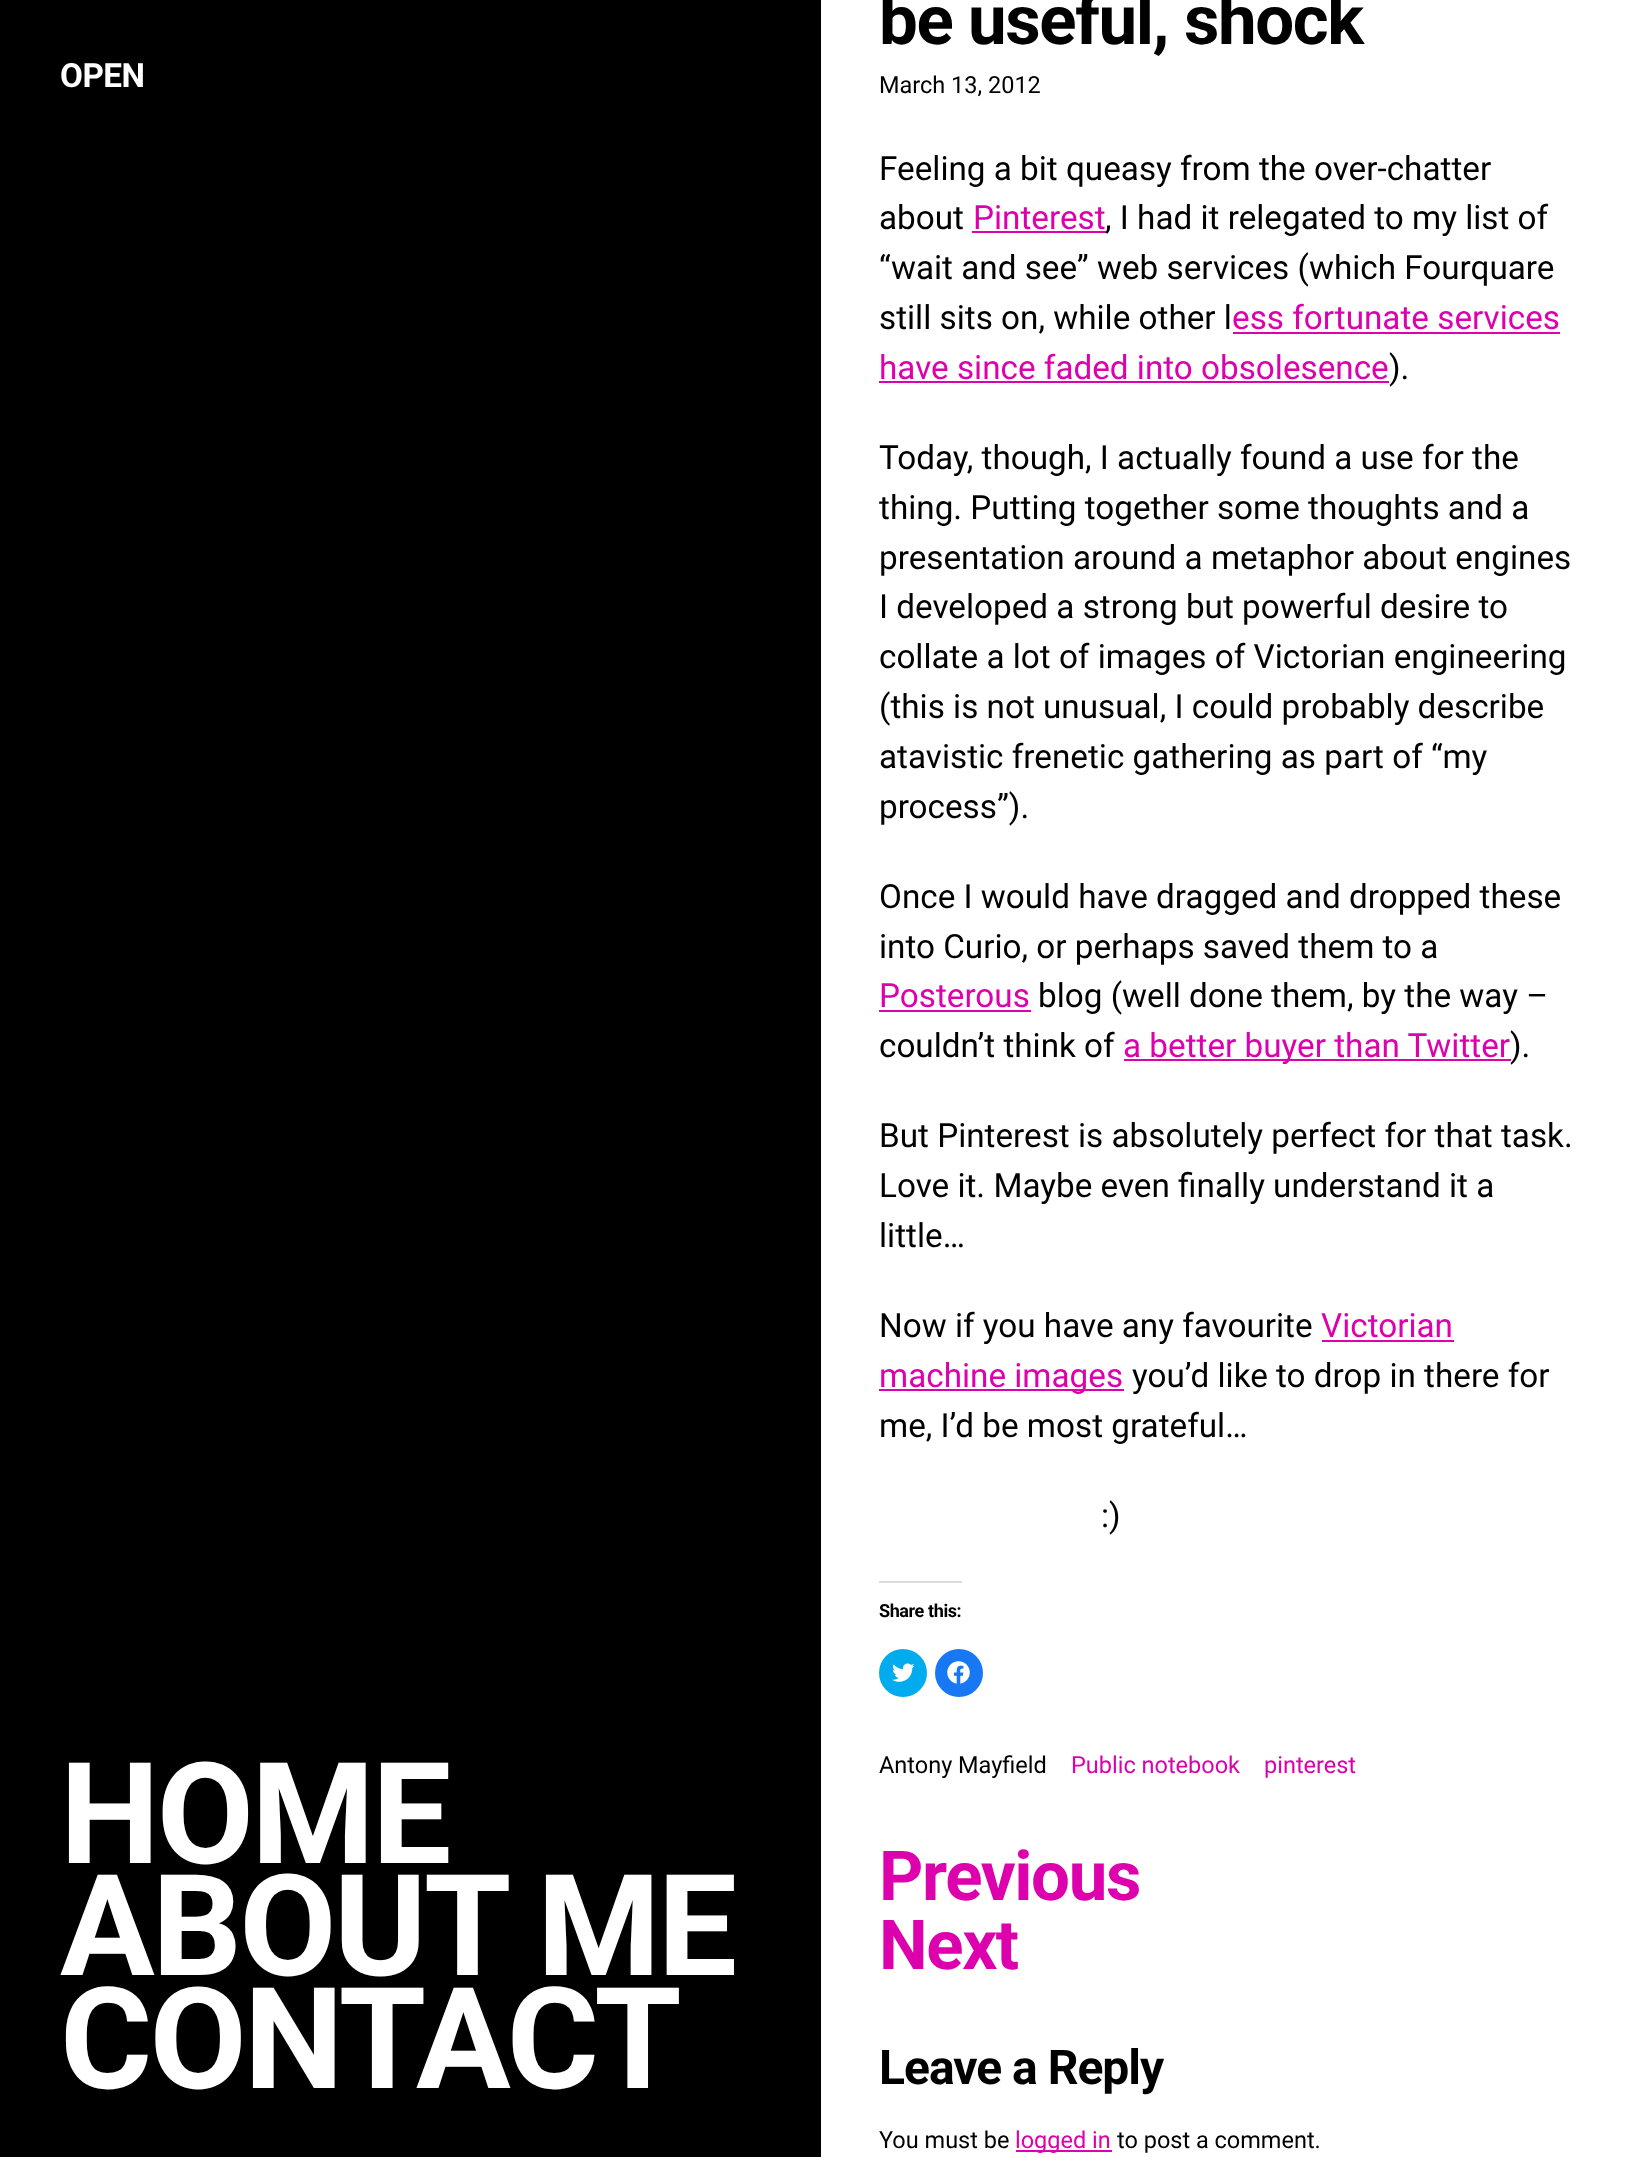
(async () => {
const canvas = document.querySelector("canvas")
canvas.width = 1639
canvas.height = 2157
const c = canvas.getContext("2d")
c.miterLimit = 4
c.fontKerning = "normal"
function T(s,x,y){c.fillText(s,x,y)}
function R(x,y,w,h){c.fillRect(x,y,w,h)}
async function I(src,x,y,w,h){const img=new Image();img.src=src;await img.decode();c.drawImage(img,x,y,w,h)}
c.fillStyle="#fff"
R(0,0,1639,2157)
c.fillStyle="#000"
R(0,0,821,2157)
c.letterSpacing="-0.5px"
c.font="bold 33.25px Roboto"
c.fillStyle="#fff"
T("OPEN",60,87)
c.letterSpacing="-2.75px"
c.font="bold 141px Roboto"
T("HOME",60,1863)
T("ABOUT ME",60,1975)
T("CONTACT",60,2088)
c.letterSpacing="-1.4px"
c.font="bold 69px Roboto"
c.fillStyle="#000"
T("be useful, shock",879,44)
c.letterSpacing="0px"
c.font="23.5px Roboto"
T("March 13, 2012",879,93)
c.font="33.25px Roboto"
T("Feeling a bit queasy from the over-chatter",879,180)
T("about",879,229)
c.fillStyle="#dd00ad"
T("Pinterest",973,229)
R(972,231,134,2)
c.fillStyle="#000"
T(", I had it relegated to my list of",1105,229)
T("“wait and see” web services (which Fourquare",879,279)
T("still sits on, while other l",879,329)
c.fillStyle="#dd00ad"
T("ess fortunate services",1232,329)
R(1233,332,327,2)
T("have since faded into obsolesence",879,379)
R(879,381,510,2)
c.fillStyle="#000"
T(").",1389,379)
T("Today, though, I actually found a use for the",879,469)
T("thing. Putting together some thoughts and a",879,519)
T("presentation around a metaphor about engines",879,569)
T("I developed a strong but powerful desire to",879,618)
T("collate a lot of images of Victorian engineering",879,668)
T("(this is not unusual, I could probably describe",879,718)
T("atavistic frenetic gathering as part of “my",879,768)
T("process”).",879,818)
T("Once I would have dragged and dropped these",879,908)
T("into Curio, or perhaps saved them to a",879,958)
c.fillStyle="#dd00ad"
T("Posterous",879,1007)
R(879,1010,152,2)
c.fillStyle="#000"
T("blog (well done them, by the way –",1038,1007)
T("couldn’t think of",879,1057)
c.fillStyle="#dd00ad"
R(1124,1059,387,2)
T("a better buyer than Twitter",1123,1057)
c.fillStyle="#000"
T(").",1510,1057)
T("But Pinterest is absolutely perfect for that task.",879,1147)
T("Love it. Maybe even finally understand it a",879,1197)
T("little…",879,1247)
T("Now if you have any favourite",879,1337)
c.fillStyle="#dd00ad"
T("Victorian",1321,1337)
R(1322,1340,132,2)
R(879,1389,245,2)
T("machine images",879,1387)
c.fillStyle="#000"
T("you’d like to drop in there for",1132,1387)
T("me, I’d be most grateful…",879,1437)
T(":)",1101,1527)
c.fillStyle="#dcdcde"
R(879,1581,83,2)
c.letterSpacing="-0.4px"
c.font="bold 18px Roboto"
c.fillStyle="#000"
T("Share this:",879,1617)
c.fillStyle="#00acee"
c.beginPath()
c.arc(903,1673,24,0,7)
c.fill()
await I("1.png",892,1663,23,19)
c.fillStyle="#1877f2"
c.beginPath()
c.arc(959,1673,24,0,7)
c.fill()
await I("2.png",947,1661,23,23)
c.letterSpacing="0px"
c.font="23.5px Roboto"
c.fillStyle="#000"
T("Antony Mayfield",879,1773)
c.fillStyle="#dd00ad"
T("Public notebook",1071,1773)
T("pinterest",1264,1773)
c.letterSpacing="-1.4px"
c.font="bold 69px Roboto"
T("Previous",879,1900)
T("Next",879,1969)
c.letterSpacing="-1px"
c.font="bold 48px Roboto"
c.fillStyle="#000"
T("Leave a Reply",879,2084)
c.letterSpacing="0px"
c.font="23.5px Roboto"
T("You must be",879,2148)
c.fillStyle="#dd00ad"
R(1016,2150,96,2)
T("logged in",1015,2148)
c.fillStyle="#000"
T("to post a comment.",1117,2148)
})()
